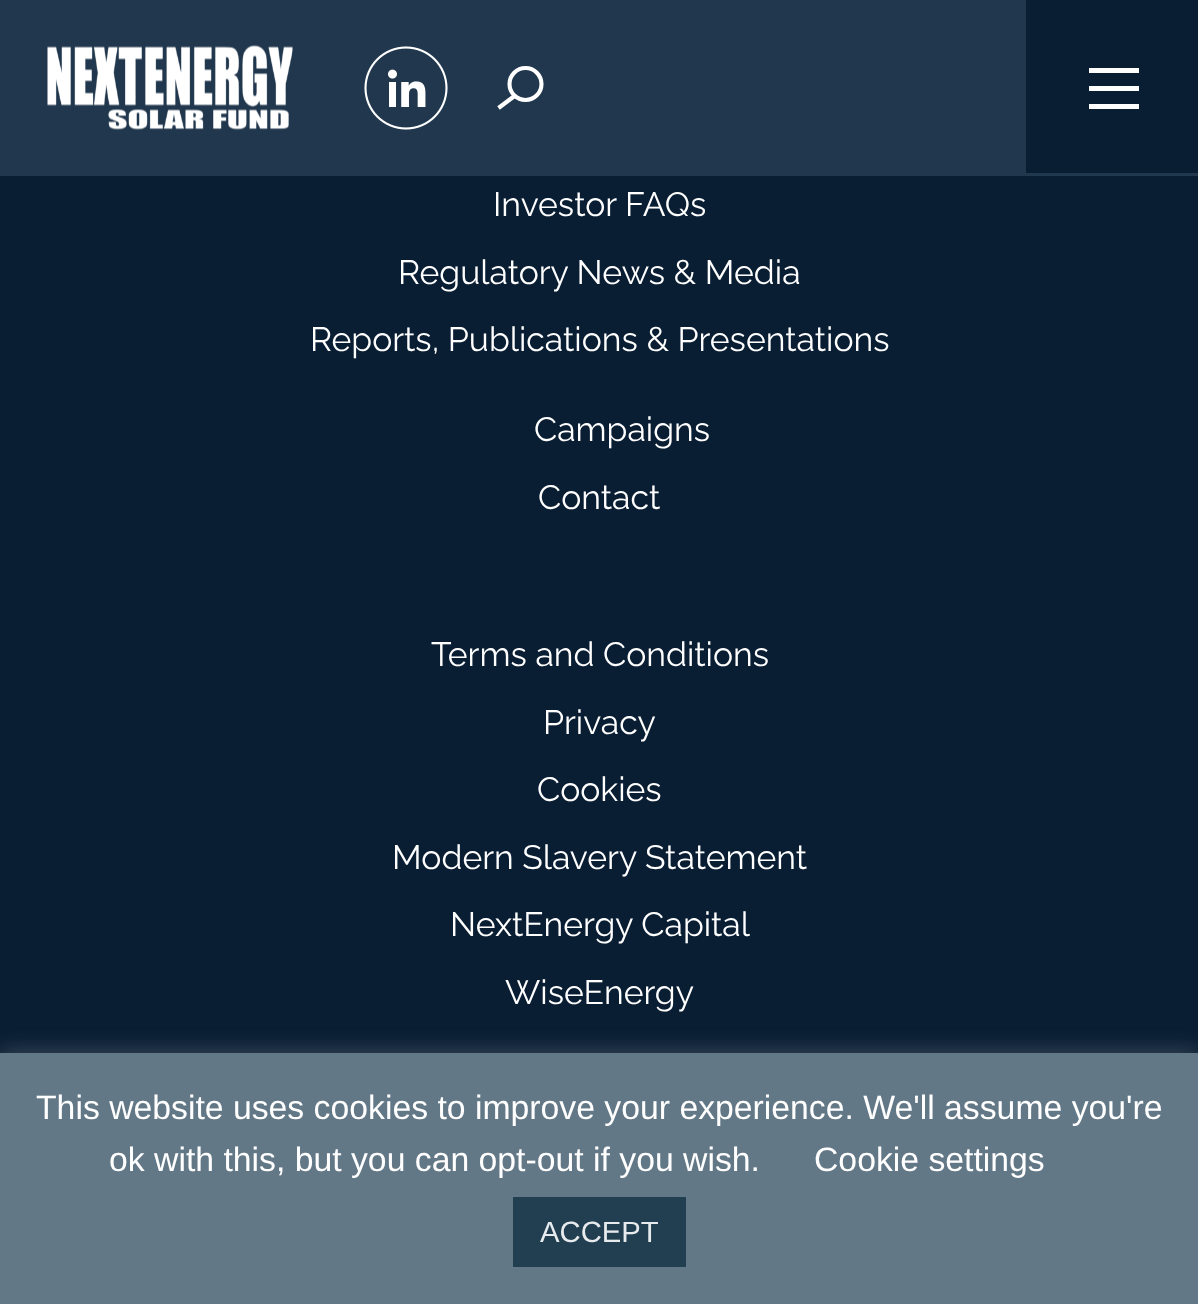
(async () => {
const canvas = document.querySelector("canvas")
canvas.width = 1198
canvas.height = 1304
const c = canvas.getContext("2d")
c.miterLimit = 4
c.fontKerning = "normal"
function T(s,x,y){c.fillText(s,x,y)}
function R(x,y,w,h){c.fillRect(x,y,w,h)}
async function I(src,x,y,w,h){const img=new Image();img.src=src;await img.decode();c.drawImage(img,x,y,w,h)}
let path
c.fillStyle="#091d33"
R(0,0,1198,1304)
c.fillStyle="#21374d"
R(0,0,1198,176)
await I("1.png",47,45,246,85)
await I("2.png",364,46,84,84)
c.beginPath()
c.arc(525.5,84,16,0,7)
c.strokeStyle="#fff"
c.lineWidth=4.1
c.stroke()
path = new Path2D("M514.5 96l-16 12")
c.stroke(path)
c.fillStyle="#091d33"
R(1026,0,172,173)
c.fillStyle="#fff"
R(1089,86,50,5)
R(1089,68,50,5)
R(1089,104,50,5)
c.font="33.75px Raleway"
T("Investor FAQs",493,216)
T("Regulatory News & Media",398,284)
T("Reports, Publications & Presentations",310,351)
T("Campaigns",534,441)
T("Contact",538,509)
T("Terms and Conditions",431,666)
T("Privacy",543,734)
T("Cookies",537,801)
T("Modern Slavery Statement",392,869)
T("NextEnergy Capital",450,936)
T("WiseEnergy",505,1004)
c.fillStyle="#acabab4d"
c.filter="blur(11px)"
c.beginPath()
c.rect(0,1051,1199,252)
c.fill()
c.filter="none"
c.fillStyle="#637887"
R(0,1053,1198,251)
c.font="33.75px Liberation Sans"
c.fillStyle="#fff"
T("This website uses cookies to improve your experience. We'll assume you're",36,1119)
T("ok with this, but you can opt-out if you wish.",109,1171)
T("Cookie settings",814,1171)
c.fillStyle="#223e51"
R(513,1197,173,70)
c.font="29.25px Liberation Sans"
c.fillStyle="#e8ebed"
T("ACCEPT",540,1242)
})()
